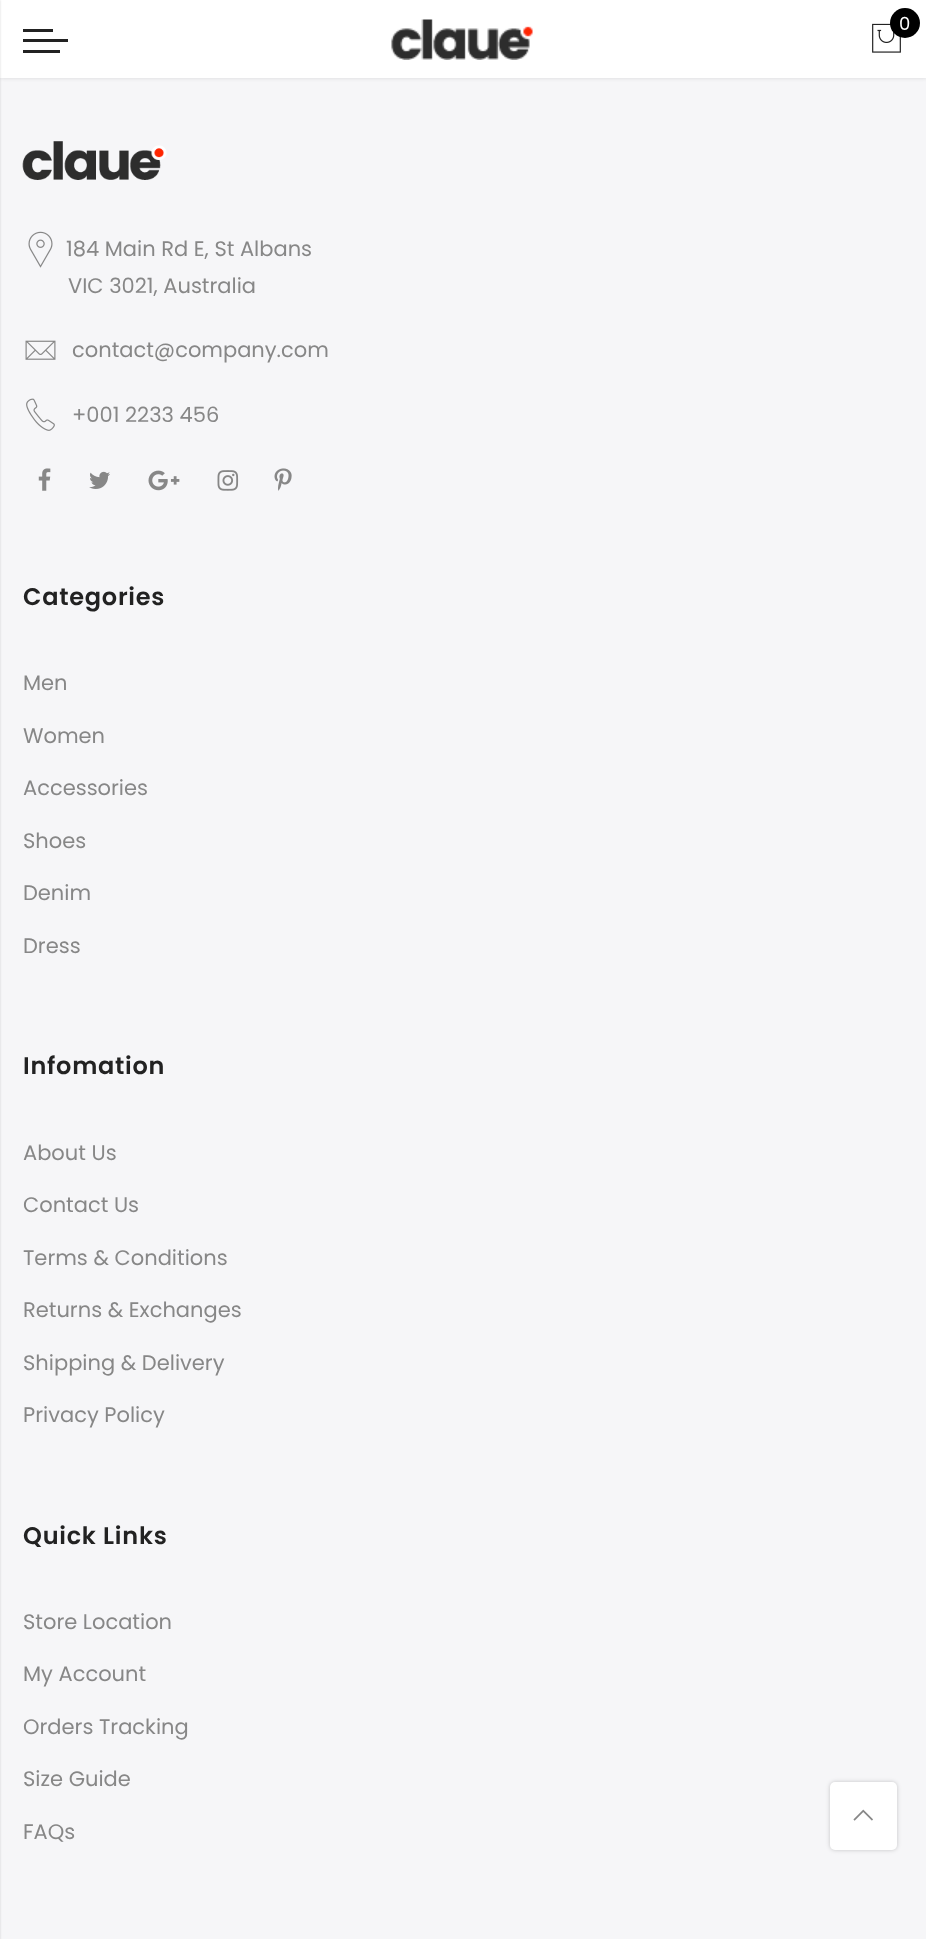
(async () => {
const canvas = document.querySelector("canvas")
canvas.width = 926
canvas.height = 1939
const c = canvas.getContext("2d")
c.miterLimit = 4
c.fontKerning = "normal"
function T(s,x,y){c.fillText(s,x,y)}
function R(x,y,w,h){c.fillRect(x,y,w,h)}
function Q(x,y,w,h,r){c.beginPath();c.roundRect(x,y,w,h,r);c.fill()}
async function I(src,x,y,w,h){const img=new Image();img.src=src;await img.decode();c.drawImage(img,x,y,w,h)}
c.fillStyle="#f6f6f8"
R(0,0,926,1939)
c.fillStyle="#0000001f"
c.filter="blur(2px)"
c.beginPath()
c.rect(0,0,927,78)
c.fill()
c.filter="none"
c.fillStyle="#fff"
R(0,0,926,78)
c.fillStyle="#00000026"
c.filter="blur(1px)"
c.beginPath()
c.rect(-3,0,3,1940)
c.fill()
c.filter="none"
c.fillStyle="#222"
R(23,29,30,3)
R(23,39,45,3)
R(23,50,37,3)
await I("1.png",391,19,142,41)
await I("2.png",872,23,29,30)
c.fillStyle="#000"
c.beginPath()
c.arc(905,23,15,0,7)
c.fill()
c.font="18px Poppins"
c.fillStyle="#fff"
T("0",899,30)
await I("3.png",22,141,145,39)
await I("4.png",28,231,25,37)
c.font="21px Poppins"
c.fillStyle="#878787"
T("184 Main Rd E, St Albans",66,256)
T("VIC 3021, Australia",68,293)
await I("5.png",25,340,31,20)
T("contact@company.com",72,357)
await I("6.png",26,398,29,33)
T("+001 2233 456",72,422)
await I("7.png",38,468,13,23)
await I("8.png",89,471,21,18)
await I("9.png",148,470,32,21)
await I("10.png",217,470,22,21)
await I("11.png",274,468,18,23)
c.letterSpacing="0.75px"
c.font="600 24px Poppins"
c.fillStyle="#222"
T("Categories",23,605)
c.letterSpacing="0px"
c.font="21px Poppins"
c.fillStyle="#878787"
T("Men",23,690)
T("Women",23,743)
T("Accessories",23,795)
T("Shoes",23,848)
T("Denim",23,900)
T("Dress",23,953)
c.letterSpacing="0.75px"
c.font="600 24px Poppins"
c.fillStyle="#222"
T("Infomation",23,1074)
c.letterSpacing="0px"
c.font="21px Poppins"
c.fillStyle="#878787"
T("About Us",23,1160)
T("Contact Us",23,1212)
T("Terms & Conditions",23,1265)
T("Returns & Exchanges",23,1317)
T("Shipping & Delivery",23,1370)
T("Privacy Policy",23,1422)
c.letterSpacing="0.75px"
c.font="600 24px Poppins"
c.fillStyle="#222"
T("Quick Links",23,1544)
c.letterSpacing="0px"
c.font="21px Poppins"
c.fillStyle="#878787"
T("Store Location",23,1629)
T("My Account",23,1681)
T("Orders Tracking",23,1734)
T("Size Guide",23,1786)
T("FAQs",23,1839)
c.fillStyle="#00000033"
c.filter="blur(2px)"
c.beginPath()
c.roundRect(830,1782,67,68,5)
c.fill()
c.filter="none"
c.fillStyle="#fff"
Q(830,1782,67,68,5)
await I("12.png",853,1809,20,12)
})()
